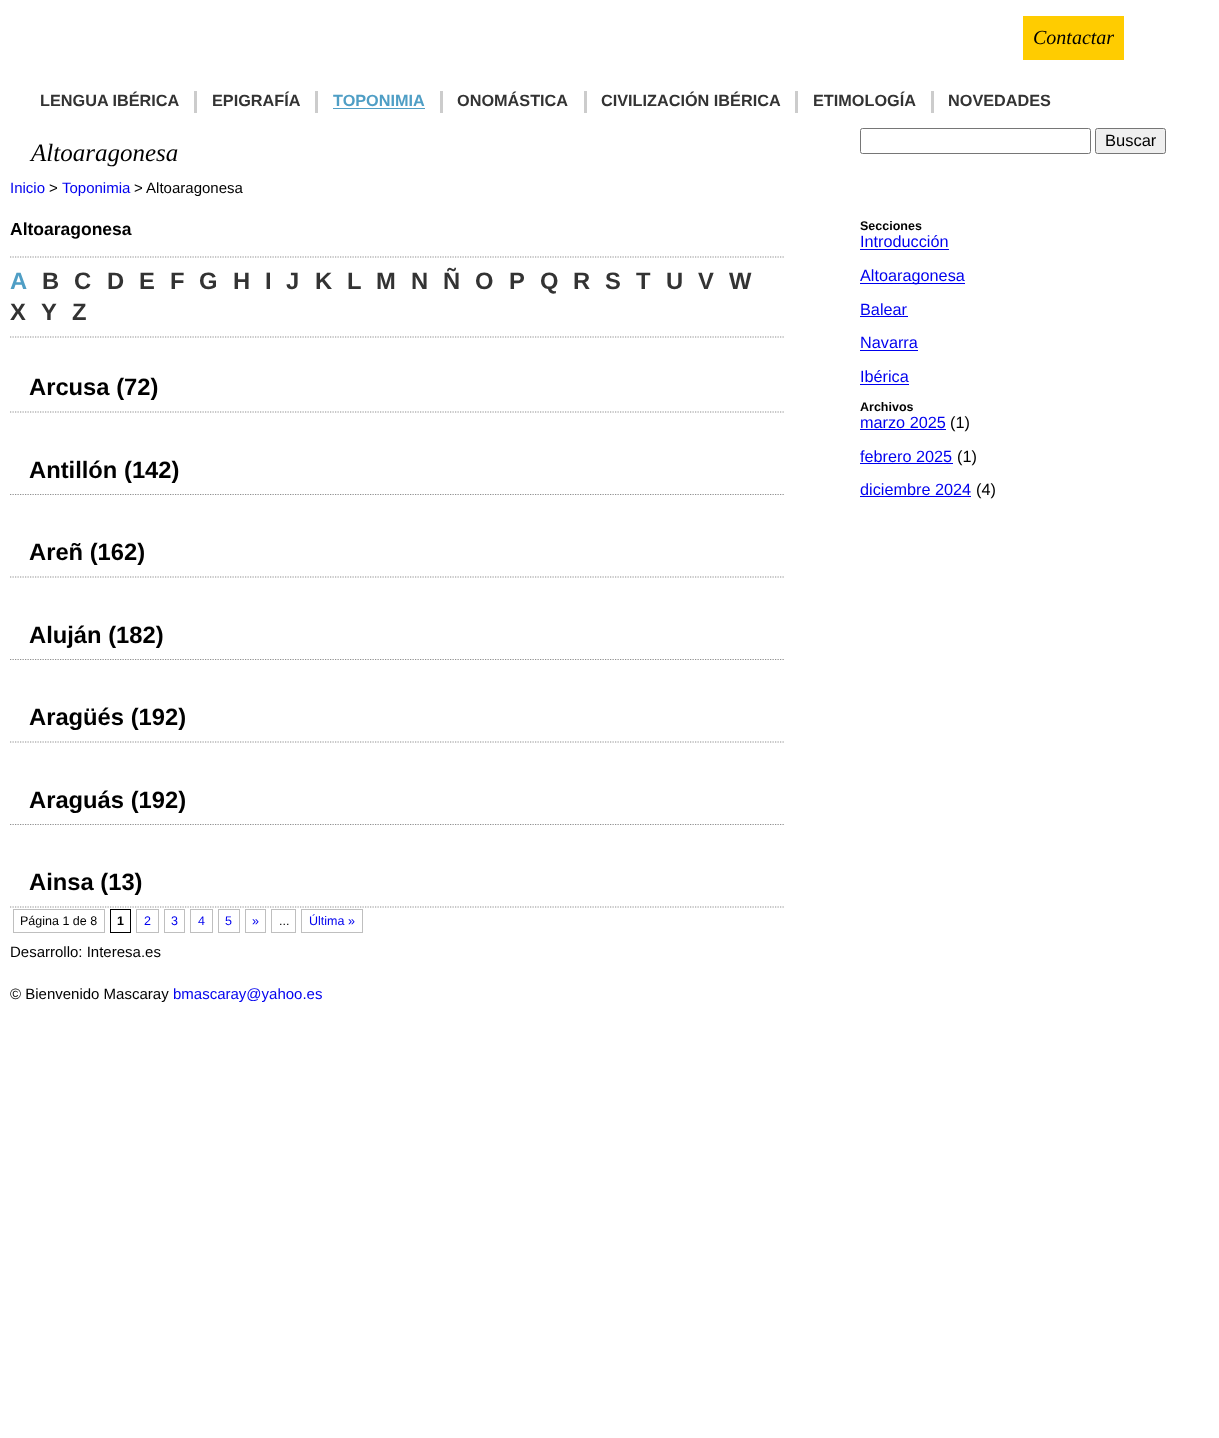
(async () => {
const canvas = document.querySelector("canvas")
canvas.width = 1219
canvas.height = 1438
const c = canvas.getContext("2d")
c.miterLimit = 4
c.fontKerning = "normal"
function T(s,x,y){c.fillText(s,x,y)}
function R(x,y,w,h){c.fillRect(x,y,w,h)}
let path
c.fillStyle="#fff"
R(0,0,1219,1438)
c.fillStyle="#fc0"
R(1023,16,101,44)
c.font="italic 20px Liberation Serif"
c.fillStyle="#000"
T("Contactar",1033,44)
c.font="bold 16.25px Liberation Sans"
c.fillStyle="#333"
T("LENGUA IBÉRICA",40,106)
c.fillStyle="#ccc"
R(194,91,3,22)
c.fillStyle="#333"
T("EPIGRAFÍA",212,106)
c.fillStyle="#ccc"
R(315,91,3,22)
c.fillStyle="#4f9ec5"
T("TOPONIMIA",333,106)
R(333,108,92,1)
c.fillStyle="#ccc"
R(440,91,3,22)
c.fillStyle="#333"
T("ONOMÁSTICA",457,106)
c.fillStyle="#ccc"
R(584,91,3,22)
c.fillStyle="#333"
T("CIVILIZACIÓN IBÉRICA",601,106)
c.fillStyle="#ccc"
R(795,91,3,22)
c.fillStyle="#333"
T("ETIMOLOGÍA",813,106)
c.fillStyle="#ccc"
R(931,91,3,22)
c.fillStyle="#333"
T("NOVEDADES",948,106)
c.beginPath()
c.roundRect(860.5,128.5,230,25,2)
c.strokeStyle="#767676"
c.stroke()
c.fillStyle="#efefef"
c.beginPath()
c.roundRect(1095.5,128.5,70,25,2)
c.fill()
c.stroke()
c.font="16.5px Liberation Sans"
c.fillStyle="#000"
T("Buscar",1105,146)
c.font="italic 25px Liberation Serif"
T("Altoaragonesa",31,161)
c.font="15px Liberation Sans"
c.fillStyle="#00e"
T("Inicio",10,193)
c.fillStyle="#000"
T(">",49,193)
c.fillStyle="#00e"
T("Toponimia",62,193)
c.fillStyle="#000"
T("> Altoaragonesa",134,193)
c.font="bold 17.5px Liberation Sans"
T("Altoaragonesa",10,235)
path = new Path2D("M10 257h775")
c.strokeStyle="#8f8f8f"
c.lineWidth=1.2
c.setLineDash([1.25,1.25])
c.stroke(path)
path = new Path2D("M10 337h775")
c.stroke(path)
c.font="bold 23.75px Liberation Sans"
c.fillStyle="#4f9ec5"
T("A",10,289)
c.fillStyle="#333"
T("B",42,289)
T("C",74,289)
T("D",107,289)
T("E",139,289)
T("F",170,289)
T("G",199,289)
T("H",233,289)
T("I",265,289)
T("J",286,289)
T("K",315,289)
T("L",347,289)
T("M",376,289)
T("N",411,289)
T("Ñ",443,289)
T("O",475,289)
T("P",509,289)
T("Q",540,289)
T("R",573,289)
T("S",605,289)
T("T",636,289)
T("U",666,289)
T("V",698,289)
T("W",729,289)
T("X",10,320)
T("Y",41,320)
T("Z",72,320)
path = new Path2D("M10 412h775")
c.stroke(path)
c.fillStyle="#000"
T("Arcusa (72)",29,395)
path = new Path2D("M10 494.5h775")
c.stroke(path)
T("Antillón (142)",29,478)
path = new Path2D("M10 577h775")
c.stroke(path)
T("Areñ (162)",29,560)
path = new Path2D("M10 659.5h775")
c.stroke(path)
T("Aluján (182)",29,643)
path = new Path2D("M10 742h775")
c.stroke(path)
T("Aragüés (192)",29,725)
path = new Path2D("M10 824.5h775")
c.stroke(path)
T("Araguás (192)",29,808)
path = new Path2D("M10 907h775")
c.stroke(path)
T("Ainsa (13)",29,890)
c.strokeStyle="#bfbfbf"
c.lineWidth=1
c.setLineDash([])
c.strokeRect(13.5,909.5,91,23)
c.font="12.5px Liberation Sans"
T("Página 1 de 8",20,925)
c.strokeStyle="#000"
c.strokeRect(110.5,909.5,20,23)
c.font="bold 12.5px Liberation Sans"
T("1",117,925)
c.strokeStyle="#bfbfbf"
c.strokeRect(136.5,909.5,22,23)
c.font="12.5px Liberation Sans"
c.fillStyle="#00e"
T("2",144,925)
c.strokeRect(164.5,909.5,20,23)
T("3",171,925)
c.strokeRect(190.5,909.5,22,23)
T("4",198,925)
c.strokeRect(218.5,909.5,21,23)
T("5",225,925)
c.strokeRect(245.5,909.5,20,23)
T("»",252,925)
c.strokeRect(271.5,909.5,24,23)
c.fillStyle="#000"
T("...",279,925)
c.strokeRect(301.5,909.5,61,23)
c.fillStyle="#00e"
T("Última »",309,925)
c.font="bold 12.5px Liberation Sans"
c.fillStyle="#000"
T("Secciones",860,230)
c.font="16.25px Liberation Sans"
c.fillStyle="#00e"
T("Introducción",860,247)
R(860,249,89,1)
R(860,283,105,1)
T("Altoaragonesa",860,281)
T("Balear",860,315)
R(860,316,48,1)
T("Navarra",860,348)
R(860,350,58,1)
T("Ibérica",860,382)
R(860,384,49,1)
c.font="bold 12.5px Liberation Sans"
c.fillStyle="#000"
T("Archivos",860,411)
c.font="16.25px Liberation Sans"
c.fillStyle="#00e"
T("marzo 2025",860,428)
R(860,429,86,1)
c.fillStyle="#000"
T("(1)",950,428)
c.fillStyle="#00e"
T("febrero 2025",860,462)
R(860,463,93,1)
c.fillStyle="#000"
T("(1)",957,462)
c.fillStyle="#00e"
T("diciembre 2024",860,495)
R(860,496,111,1)
c.fillStyle="#000"
T("(4)",976,495)
c.font="15px Liberation Sans"
T("Desarrollo: Interesa.es",10,957)
T("© Bienvenido Mascaray",10,999)
c.fillStyle="#00e"
T("bmascaray@yahoo.es",173,999)
})()
